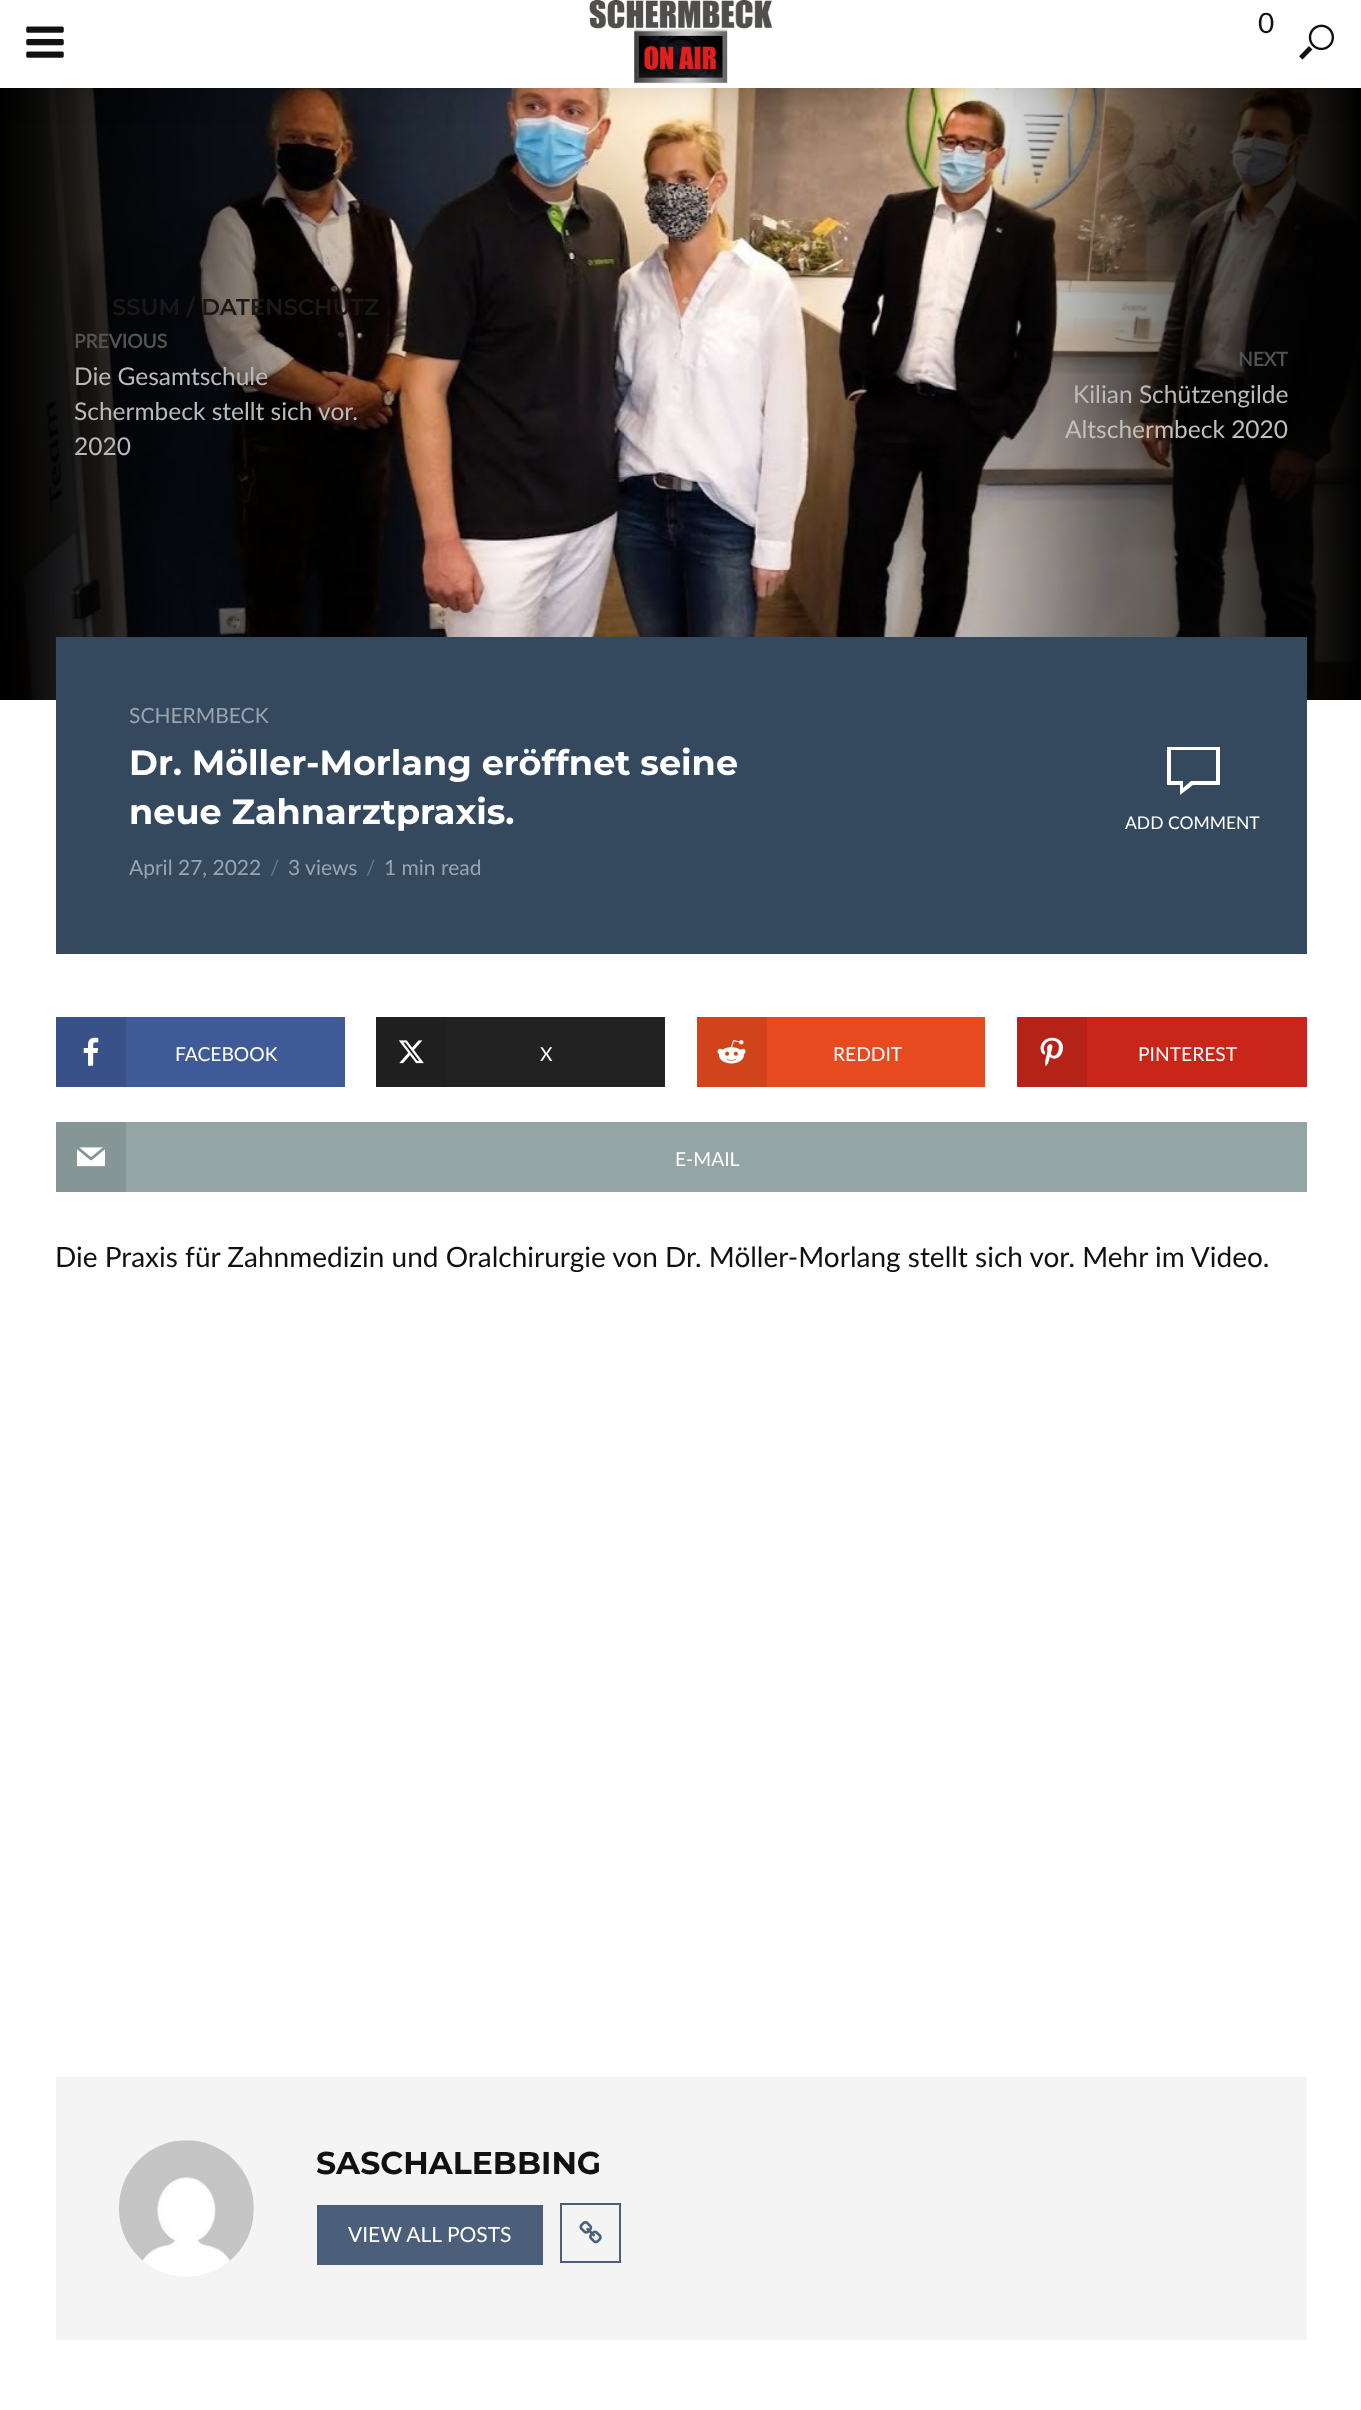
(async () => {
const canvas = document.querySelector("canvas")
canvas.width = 1361
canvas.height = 2410
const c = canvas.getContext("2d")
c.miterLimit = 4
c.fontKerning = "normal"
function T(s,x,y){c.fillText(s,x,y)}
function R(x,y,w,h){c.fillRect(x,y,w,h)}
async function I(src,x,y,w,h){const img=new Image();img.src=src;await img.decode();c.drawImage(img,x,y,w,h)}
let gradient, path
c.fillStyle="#fff"
R(0,0,1361,2410)
await I("4.png",0,88,1360,612)
gradient = c.createLinearGradient(954,394,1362,394)
gradient.addColorStop(0,"#00000000")
gradient.addColorStop(1,"#000")
c.fillStyle = gradient
R(963,88,398,612)
c.fillStyle="#00000026"
c.filter="blur(17.5px)"
c.beginPath()
c.rect(0,0,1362,88)
c.fill()
c.filter="none"
c.fillStyle="#fff"
R(0,0,1361,88)
await I("1.png",589,0,184,84)
c.font="28px Lato"
c.fillStyle="#111"
T("0",1258,33)
await I("2.png",1299,24,36,36)
await I("3.png",26,26,38,32)
c.font="600 22.75px Montserrat"
c.fillStyle="#1b1817"
T("SSUM / DATENSCHUTZ",112,315)
c.font="bold 19.25px Lato"
c.fillStyle="#535353"
T("PREVIOUS",74,348)
c.font="24.5px Lato"
c.fillStyle="#bababa"
T("Die Gesamtschule",74,385)
T("Schermbeck stellt sich vor.",74,420)
T("2020",74,455)
c.font="bold 19.25px Lato"
c.fillStyle="#535353"
T("NEXT",1238,366)
c.font="24.5px Lato"
c.fillStyle="#bababa"
T("Kilian Schützengilde",1073,403)
c.fillStyle="#c1bfbe"
T("Altschermbeck 2020",1065,438)
c.fillStyle="#34495e"
R(56,637,1251,317)
c.font="21px Lato"
c.fillStyle="#9aa4af"
T("SCHERMBECK",129,723)
c.font="bold 35px Montserrat"
c.fillStyle="#fff"
T("Dr. Möller-Morlang eröffnet seine",129,775)
T("neue Zahnarztpraxis.",129,824)
c.font="21px Lato"
c.fillStyle="#9aa4af"
T("April 27, 2022",129,875)
c.fillStyle="#677787"
T("/",270,875)
c.fillStyle="#9aa4af"
T("3 views",288,875)
c.fillStyle="#677787"
T("/",366,875)
c.fillStyle="#9aa4af"
T("1 min read",384,875)
c.fillStyle="#fff"
path = new Path2D("M1167 785h13v10l13-10h27v-38h-53zm4-35h45v31h-25l-8 7v-7h-12z")
c.fill(path)
c.font="17.5px Lato"
T("ADD COMMENT",1125,829)
c.fillStyle="#3e5b98"
R(126,1017,219,70)
c.fillStyle="#385289"
R(56,1017,70,70)
await I("5.png",83,1037,16,29)
c.font="19.25px Lato"
c.fillStyle="#fff"
T("FACEBOOK",175,1061)
c.fillStyle="#222"
R(446,1017,219,70)
c.fillStyle="#1f1f1f"
R(376,1017,70,70)
await I("6.png",398,1040,26,24)
c.fillStyle="#fff"
T("X",540,1061)
c.fillStyle="#e74a1e"
R(767,1017,218,70)
c.fillStyle="#d0431b"
R(697,1017,70,70)
await I("7.png",717,1040,29,24)
c.fillStyle="#fff"
T("REDDIT",833,1061)
c.fillStyle="#c92619"
R(1087,1017,220,70)
c.fillStyle="#b52217"
R(1017,1017,70,70)
await I("8.png",1040,1037,23,29)
c.fillStyle="#fff"
T("PINTEREST",1138,1061)
c.fillStyle="#95a5a6"
R(126,1122,1181,70)
c.fillStyle="#869595"
R(56,1122,70,70)
await I("9.png",77,1147,28,20)
c.fillStyle="#fff"
T("E-MAIL",675,1166)
c.font="28px Lato"
c.fillStyle="#111"
T("Die Praxis für Zahnmedizin und Oralchirurgie von Dr. Möller-Morlang stellt sich vor. Mehr im Video.",55,1267)
c.fillStyle="#f4f4f4"
R(56,2077,1251,263)
await I("10.png",119,2140,135,137)
c.font="bold 31.5px Montserrat"
c.fillStyle="#111"
T("SASCHALEBBING",316,2174)
c.fillStyle="#4b5e7a"
R(317,2205,226,60)
c.font="21px Lato"
c.fillStyle="#fff"
T("VIEW ALL POSTS",348,2242)
c.strokeStyle="#4b5e7a"
c.lineWidth=2
c.strokeRect(561,2204,59,58)
await I("11.png",579,2221,23,23)
})()
